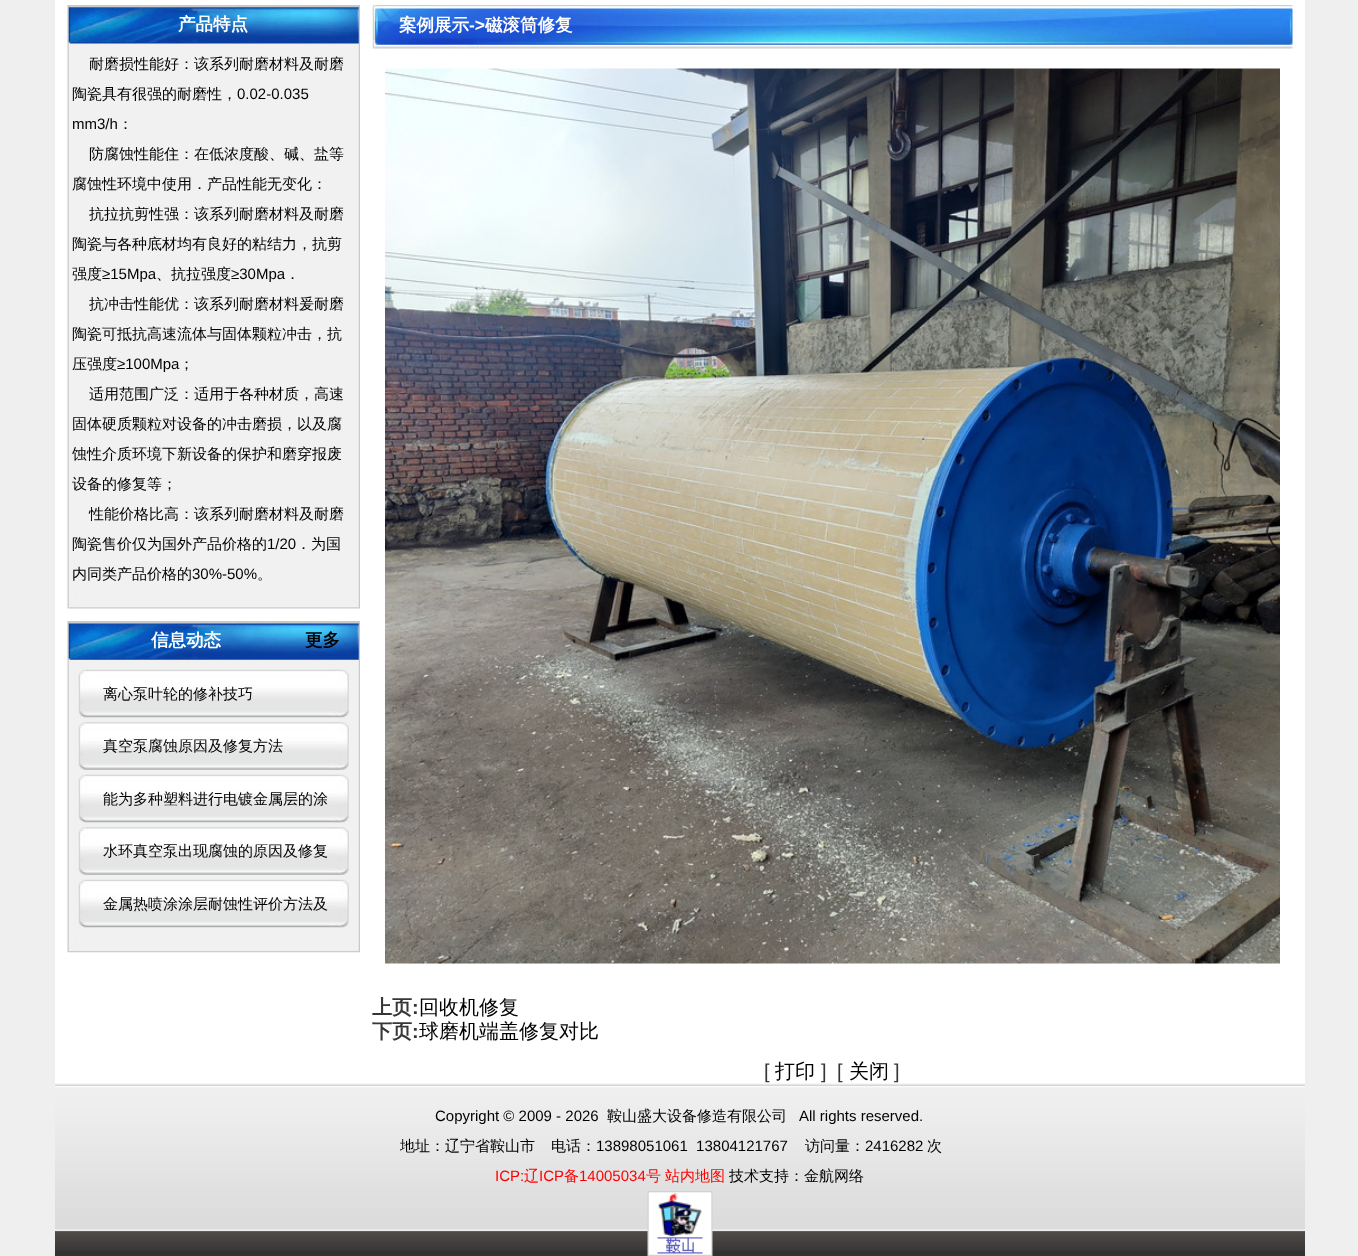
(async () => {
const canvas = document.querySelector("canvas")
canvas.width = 1358
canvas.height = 1256
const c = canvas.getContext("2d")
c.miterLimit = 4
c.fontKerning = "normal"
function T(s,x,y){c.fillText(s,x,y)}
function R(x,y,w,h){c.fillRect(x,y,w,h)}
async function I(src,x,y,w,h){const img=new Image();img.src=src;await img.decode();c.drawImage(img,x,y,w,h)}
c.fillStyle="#efefef"
R(0,0,1358,1256)
c.fillStyle="#fff"
R(55,0,1250,1084)
await I("1.png",67,5,293,604)
await I("2.png",67,5,293,39)
c.font="bold 17.5px WenQuanYi Zen Hei"
T("产品特点",178,30)
c.font="500 15px WenQuanYi Zen Hei"
c.fillStyle="#000"
T("耐磨损性能好：该系列耐磨材料及耐磨",89,69)
T("陶瓷具有很强的耐磨性，",72,99)
c.font="15px Liberation Sans"
T("0.02-0.035",237,99)
T("mm3/h",72,129)
c.font="500 15px WenQuanYi Zen Hei"
T("：",118,129)
T("防腐蚀性能住：在低浓度酸、碱、盐等",89,159)
T("腐蚀性环境中使用．产品性能无变化：",72,189)
T("抗拉抗剪性强：该系列耐磨材料及耐磨",89,219)
T("陶瓷与各种底材均有良好的粘结力，抗剪",72,249)
T("强度",72,279)
c.font="15px Liberation Sans"
T("≥15Mpa",102,279)
c.font="500 15px WenQuanYi Zen Hei"
T("、抗拉强度",156,279)
c.font="15px Liberation Sans"
T("≥30Mpa",231,279)
c.font="500 15px WenQuanYi Zen Hei"
T("．",285,279)
T("抗冲击性能优：该系列耐磨材料爰耐磨",89,309)
T("陶瓷可抵抗高速流体与固体颗粒冲击，抗",72,339)
T("压强度",72,369)
c.font="15px Liberation Sans"
T("≥100Mpa",117,369)
c.font="500 15px WenQuanYi Zen Hei"
T("；",179,369)
T("适用范围广泛：适用于各种材质，高速",89,399)
T("固体硬质颗粒对设备的冲击磨损，以及腐",72,429)
T("蚀性介质环境下新设备的保护和磨穿报废",72,459)
T("设备的修复等；",72,489)
T("性能价格比高：该系列耐磨材料及耐磨",89,519)
T("陶瓷售价仅为国外产品价格的",72,549)
c.font="15px Liberation Sans"
T("1/20",267,549)
c.font="500 15px WenQuanYi Zen Hei"
T("．为国",296,549)
T("内同类产品价格的",72,579)
c.font="15px Liberation Sans"
T("30%-50%",192,579)
c.font="500 15px WenQuanYi Zen Hei"
T("。",257,579)
await I("3.png",67,621,293,332)
await I("4.png",67,621,293,39)
c.font="bold 17.5px WenQuanYi Zen Hei"
c.fillStyle="#fff"
T("信息动态",151,646)
c.fillStyle="#000"
T("更多",305,646)
await I("5.png",78,669,271,49)
c.font="500 15px WenQuanYi Zen Hei"
T("离心泵叶轮的修补技巧",103,699)
await I("6.png",78,722,271,48)
T("真空泵腐蚀原因及修复方法",103,751)
await I("5.png",78,774,271,49)
T("能为多种塑料进行电镀金属层的涂",103,804)
await I("6.png",78,827,271,48)
T("水环真空泵出现腐蚀的原因及修复",103,856)
await I("5.png",78,879,271,49)
T("金属热喷涂涂层耐蚀性评价方法及",103,909)
await I("7.png",372,5,921,44)
c.font="bold 17.5px WenQuanYi Zen Hei"
c.fillStyle="#fff"
T("案例展示",399,31)
c.font="bold 17.5px Liberation Sans"
T("->",469,31)
c.font="bold 17.5px WenQuanYi Zen Hei"
T("磁滚筒修复",485,31)
await I("8.png",385,68,895,896)
c.font="bold 20px WenQuanYi Zen Hei"
c.fillStyle="#363636"
T("上页",372,1014)
c.font="bold 20px Liberation Sans"
T(":",412,1014)
c.font="500 20px WenQuanYi Zen Hei"
c.fillStyle="#000"
T("回收机修复",419,1014)
c.font="bold 20px WenQuanYi Zen Hei"
c.fillStyle="#363636"
T("下页",372,1038)
c.font="bold 20px Liberation Sans"
T(":",412,1038)
c.font="500 20px WenQuanYi Zen Hei"
c.fillStyle="#000"
T("球磨机端盖修复对比",419,1038)
c.font="20px Liberation Sans"
c.fillStyle="#363636"
T("[",764,1078)
c.font="500 20px WenQuanYi Zen Hei"
c.fillStyle="#000"
T("打印",775,1078)
c.font="20px Liberation Sans"
c.fillStyle="#363636"
T("]",821,1078)
T("[",837,1078)
c.font="500 20px WenQuanYi Zen Hei"
c.fillStyle="#000"
T("关闭",849,1078)
c.font="20px Liberation Sans"
c.fillStyle="#363636"
T("]",894,1078)
c.fillStyle="#333230"
R(55,1251,1250,5)
await I("9.png",55,1083,1250,168)
c.font="15px Liberation Sans"
c.fillStyle="#000"
T("Copyright © 2009 - 2026",435,1121)
c.font="500 15px WenQuanYi Zen Hei"
T("鞍山盛大设备修造有限公司",607,1121)
c.font="15px Liberation Sans"
T("All rights reserved.",799,1121)
c.font="500 15px WenQuanYi Zen Hei"
T("地址：辽宁省鞍山市",400,1151)
T("电话：",551,1151)
c.font="15px Liberation Sans"
T("13898051061  13804121767",596,1151)
c.font="500 15px WenQuanYi Zen Hei"
T("访问量：",805,1151)
c.font="15px Liberation Sans"
T("2416282",865,1151)
c.font="500 15px WenQuanYi Zen Hei"
T("次",927,1151)
c.font="15px Liberation Sans"
c.fillStyle="#f00"
T("ICP:",495,1181)
c.font="500 15px WenQuanYi Zen Hei"
T("辽",524,1181)
c.font="15px Liberation Sans"
T("ICP",539,1181)
c.font="500 15px WenQuanYi Zen Hei"
T("备",564,1181)
c.font="15px Liberation Sans"
T("14005034",579,1181)
c.font="500 15px WenQuanYi Zen Hei"
T("号",646,1181)
T("站内地图",665,1181)
c.fillStyle="#000"
T("技术支持：金航网络",729,1181)
await I("10.png",647,1191,66,65)
})()
